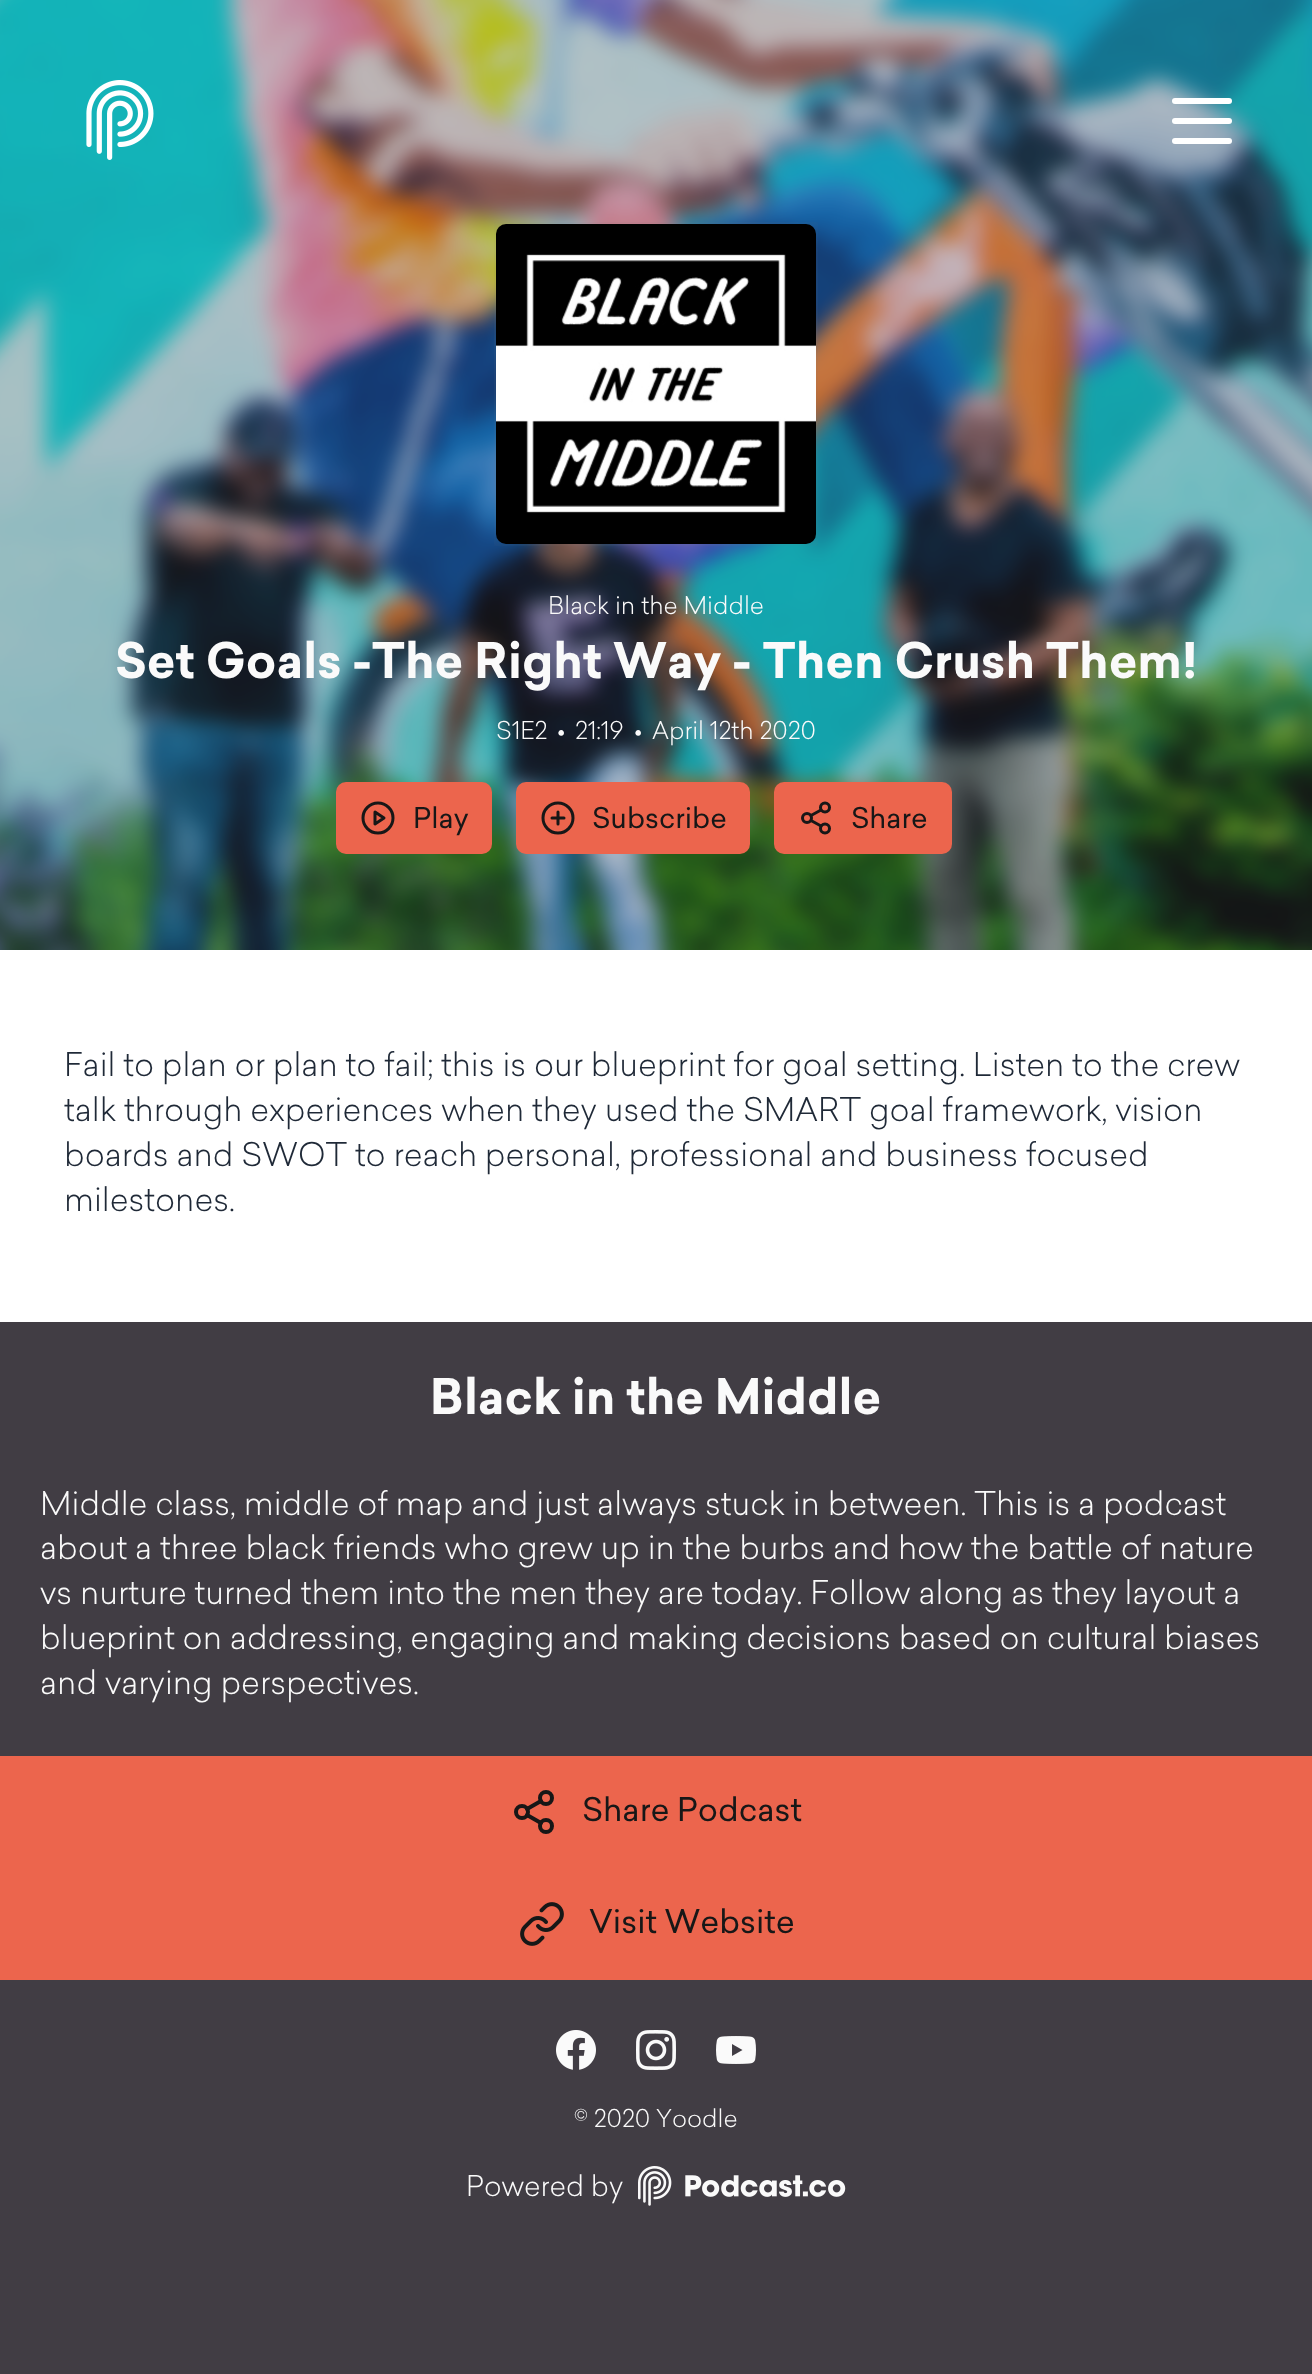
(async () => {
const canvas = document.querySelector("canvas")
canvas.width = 1312
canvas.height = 2374
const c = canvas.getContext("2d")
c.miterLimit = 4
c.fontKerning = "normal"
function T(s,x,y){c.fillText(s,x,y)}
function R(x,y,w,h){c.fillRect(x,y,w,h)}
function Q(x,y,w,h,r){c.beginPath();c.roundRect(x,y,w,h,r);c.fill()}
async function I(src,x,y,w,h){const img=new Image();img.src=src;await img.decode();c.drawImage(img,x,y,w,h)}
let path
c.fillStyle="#413d44"
R(0,0,1312,2374)
await I("1.png",0,0,1312,950)
await I("2.png",86,80,68,80)
c.fillStyle="#fff"
Q(1172,98,60,6,3)
Q(1172,118,60,6,3)
Q(1172,138,60,6,3)
await I("3.png",494,222,324,324)
c.font="300 24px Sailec"
c.fillStyle="#fafafa"
T("Black in the Middle",548,614)
c.font="bold 48px Sailec"
T("Set Goals -The Right Way - Then Crush Them!",115,678)
c.font="300 24px Sailec"
T("S1E2",496,739)
T("•",557,739)
T("21:19",575,739)
T("•",634,739)
T("April 12th 2020",652,739)
c.fillStyle="#ec654d"
Q(336,782,156,72,10)
c.beginPath()
c.arc(378,818,15,0,7)
c.strokeStyle="#171717"
c.lineWidth=3
c.stroke()
path = new Path2D("M375 812l9 6l-9 6z")
c.lineCap="round"
c.lineJoin="round"
c.stroke(path)
c.font="28px Sailec"
c.fillStyle="#171717"
T("Play",413,828)
c.fillStyle="#ec654d"
Q(516,782,234,72,10)
c.beginPath()
c.arc(558,818,15,0,7)
c.stroke()
path = new Path2D("M558 812v12m-6-6h12")
c.stroke(path)
c.fillStyle="#171717"
T("Subscribe",592,828)
c.fillStyle="#ec654d"
Q(774,782,178,72,10)
c.beginPath()
c.arc(807,818,4.5,0,7)
c.stroke()
c.beginPath()
c.arc(825,807.5,4.5,0,7)
c.stroke()
c.beginPath()
c.arc(825,828.5,4.5,0,7)
c.stroke()
path = new Path2D("M811 820.5l10 5.5m0-16l-10 5.5")
c.stroke(path)
c.fillStyle="#171717"
T("Share",851,828)
c.fillStyle="#fff"
R(0,950,1312,372)
c.font="300 32px Sailec"
c.fillStyle="#1f2937"
T("Fail to plan or plan to fail; this is our blueprint for goal setting. Listen to the crew",64,1076)
T("talk through experiences when they used the SMART goal framework, vision",64,1121)
T("boards and SWOT to reach personal, professional and business focused",64,1166)
T("milestones.",64,1211)
c.font="bold 48px Sailec"
c.fillStyle="#fafafa"
T("Black in the Middle",430,1414)
c.font="300 32px Sailec"
T("Middle class, middle of map and just always stuck in between. This is a podcast",40,1515)
T("about a three black friends who grew up in the burbs and how the battle of nature",40,1559)
T("vs nurture turned them into the men they are today. Follow along as they layout a",40,1604)
T("blueprint on addressing, engaging and making decisions based on cultural biases",40,1649)
T("and varying perspectives.",40,1694)
c.fillStyle="#ec654d"
R(0,1756,1312,224)
c.beginPath()
c.arc(522,1812,6,0,7)
c.lineWidth=4
c.stroke()
c.beginPath()
c.arc(546,1798,6,0,7)
c.stroke()
c.beginPath()
c.arc(546,1826,6,0,7)
c.stroke()
path = new Path2D("M527 1815l14 8m0-22l-14 8")
c.stroke(path)
c.font="32px Sailec"
c.fillStyle="#171717"
T("Share Podcast",582,1821)
await I("4.png",520,1902,44,44)
T("Visit Website",589,1933)
await I("5.png",556,2030,40,40)
await I("6.png",636,2030,40,40)
await I("7.png",716,2036,40,28)
c.font="300 24px Sailec"
c.fillStyle="#fafafa"
T("© 2020 Yoodle",574,2127)
c.font="300 28px Sailec"
T("Powered by",466,2196)
await I("8.png",638,2166,208,40)
})()
